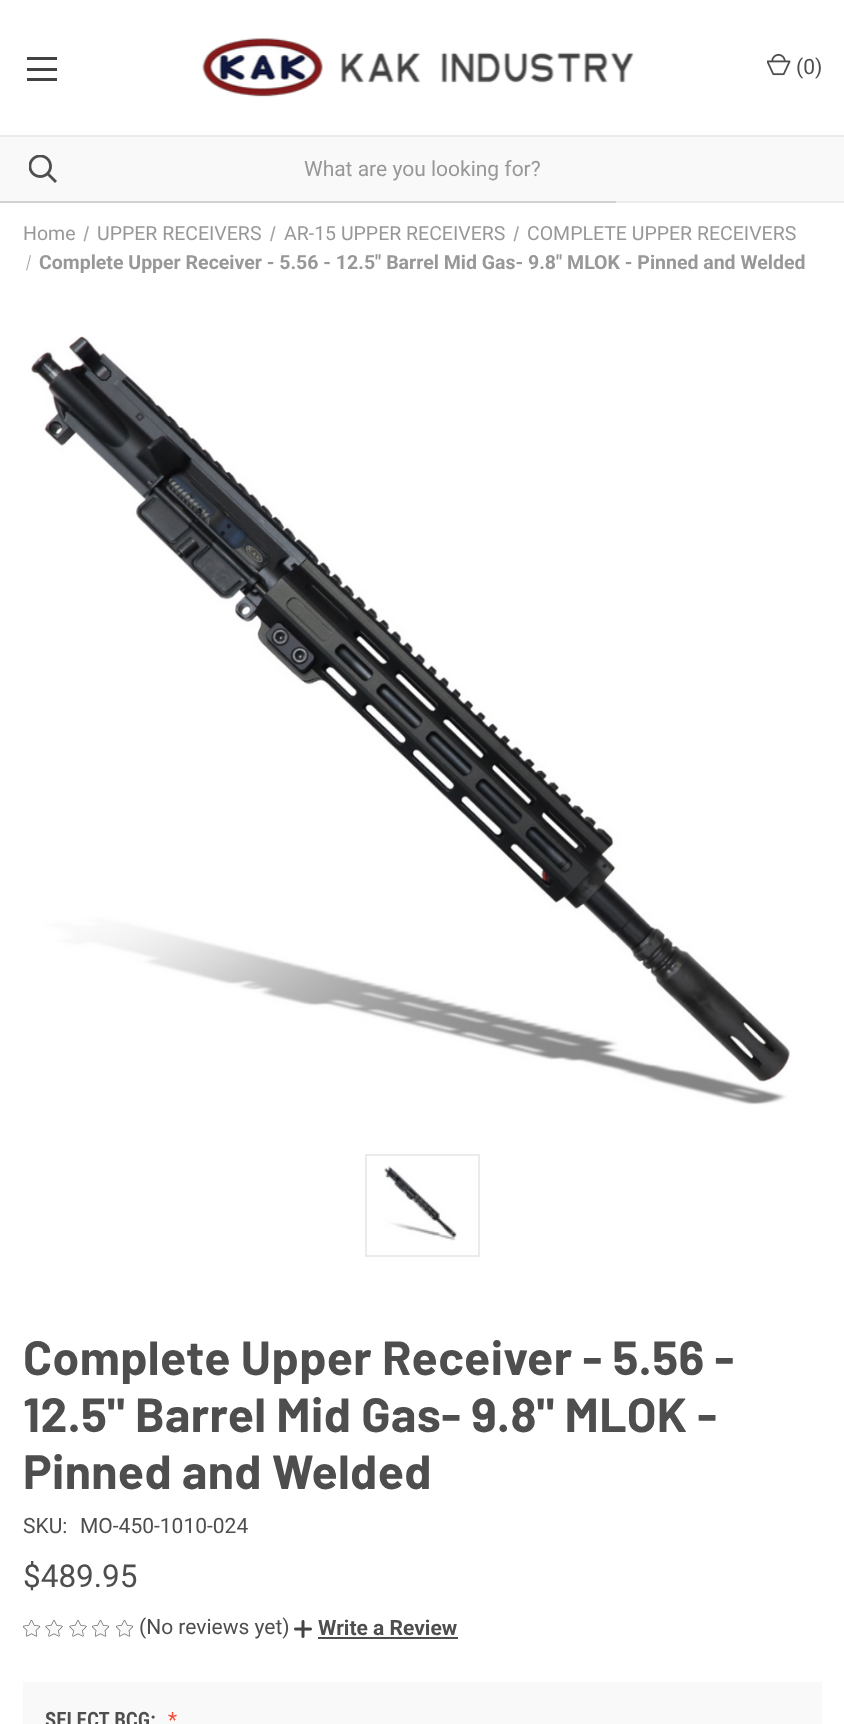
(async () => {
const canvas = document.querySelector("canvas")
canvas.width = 844
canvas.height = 1724
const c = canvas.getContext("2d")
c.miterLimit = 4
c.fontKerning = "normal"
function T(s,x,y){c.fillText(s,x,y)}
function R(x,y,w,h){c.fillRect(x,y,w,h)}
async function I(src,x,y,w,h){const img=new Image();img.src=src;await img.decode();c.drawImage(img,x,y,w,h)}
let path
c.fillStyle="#fff"
R(0,0,844,1724)
c.fillStyle="#ebebeb"
R(616,201,228,2)
c.fillStyle="#424242"
R(27,68,30,3)
R(27,57,30,3)
R(27,78,30,3)
await I("1.png",202,38,432,59)
await I("2.png",767,53,24,23)
c.font="21px Roboto"
c.fillStyle="#4e4e4e"
T("(0)",796,74)
c.fillStyle="#f9f9f9"
R(0,137,844,64)
await I("3.png",29,155,28,28)
c.fillStyle="#ebebeb"
R(0,135,844,2)
c.fillStyle="#989898"
T("What are you looking for?",304,176)
c.fillStyle="#d2d2d2"
R(0,201,616,2)
c.font="19.5px Roboto"
c.fillStyle="#989898"
T("Home",23,240)
c.fillStyle="#a3a3a3"
path = new Path2D("M87.5 226l1.5 .5l-4 15l-1.5-.5z")
c.fill(path)
c.fillStyle="#989898"
T("UPPER RECEIVERS",97,240)
c.fillStyle="#a3a3a3"
path = new Path2D("M274 226l1.5 .5l-4 15l-1.5-.5z")
c.fill(path)
c.fillStyle="#989898"
T("AR-15 UPPER RECEIVERS",284,240)
c.fillStyle="#a3a3a3"
path = new Path2D("M517.5 226l1.5 .5l-4 15l-1.5-.5z")
c.fill(path)
c.fillStyle="#989898"
T("COMPLETE UPPER RECEIVERS",527,240)
c.fillStyle="#a3a3a3"
path = new Path2D("M30 255l1 .5l-4 15h-1z")
c.fill(path)
c.font="bold 19.5px Roboto"
c.fillStyle="#989898"
T("Complete Upper Receiver - 5.56 - 12.5\" Barrel Mid Gas- 9.8\" MLOK - Pinned and Welded",39,269)
await I("4.png",31,335,760,770)
c.strokeStyle="#ebebeb"
c.lineWidth=2
c.strokeRect(366,1155,113,101)
await I("5.png",384,1166,73,75)
c.letterSpacing="0.4px"
c.font="bold 48px Barlow"
c.fillStyle="#4e4e4e"
T("Complete Upper Receiver - 5.56 -",23,1375)
T("12.5\" Barrel Mid Gas- 9.8\" MLOK -",23,1432)
T("Pinned and Welded",23,1489)
c.letterSpacing="0px"
c.font="21px Roboto"
T("SKU:",23,1533)
T("MO-450-1010-024",80,1533)
c.font="31.5px Roboto"
T("$489.95",23,1587)
await I("6.png",23,1620,18,17)
await I("7.png",45,1620,18,17)
await I("7.png",69,1620,18,17)
await I("6.png",92,1620,18,17)
await I("6.png",116,1620,18,17)
c.font="21px Roboto"
T("(No reviews yet)",139,1634)
await I("8.png",294,1620,18,18)
c.font="bold 21px Roboto"
T("Write a Review",318,1635)
R(318,1637,140,2)
c.fillStyle="#f9f9f9"
R(23,1682,799,42)
c.font="600 21px Roboto Condensed"
c.fillStyle="#4e4e4e"
T("SELECT BCG:",45,1727)
c.font="21px Roboto Condensed"
c.fillStyle="#f54a3a"
T("*",168,1727)
})()
